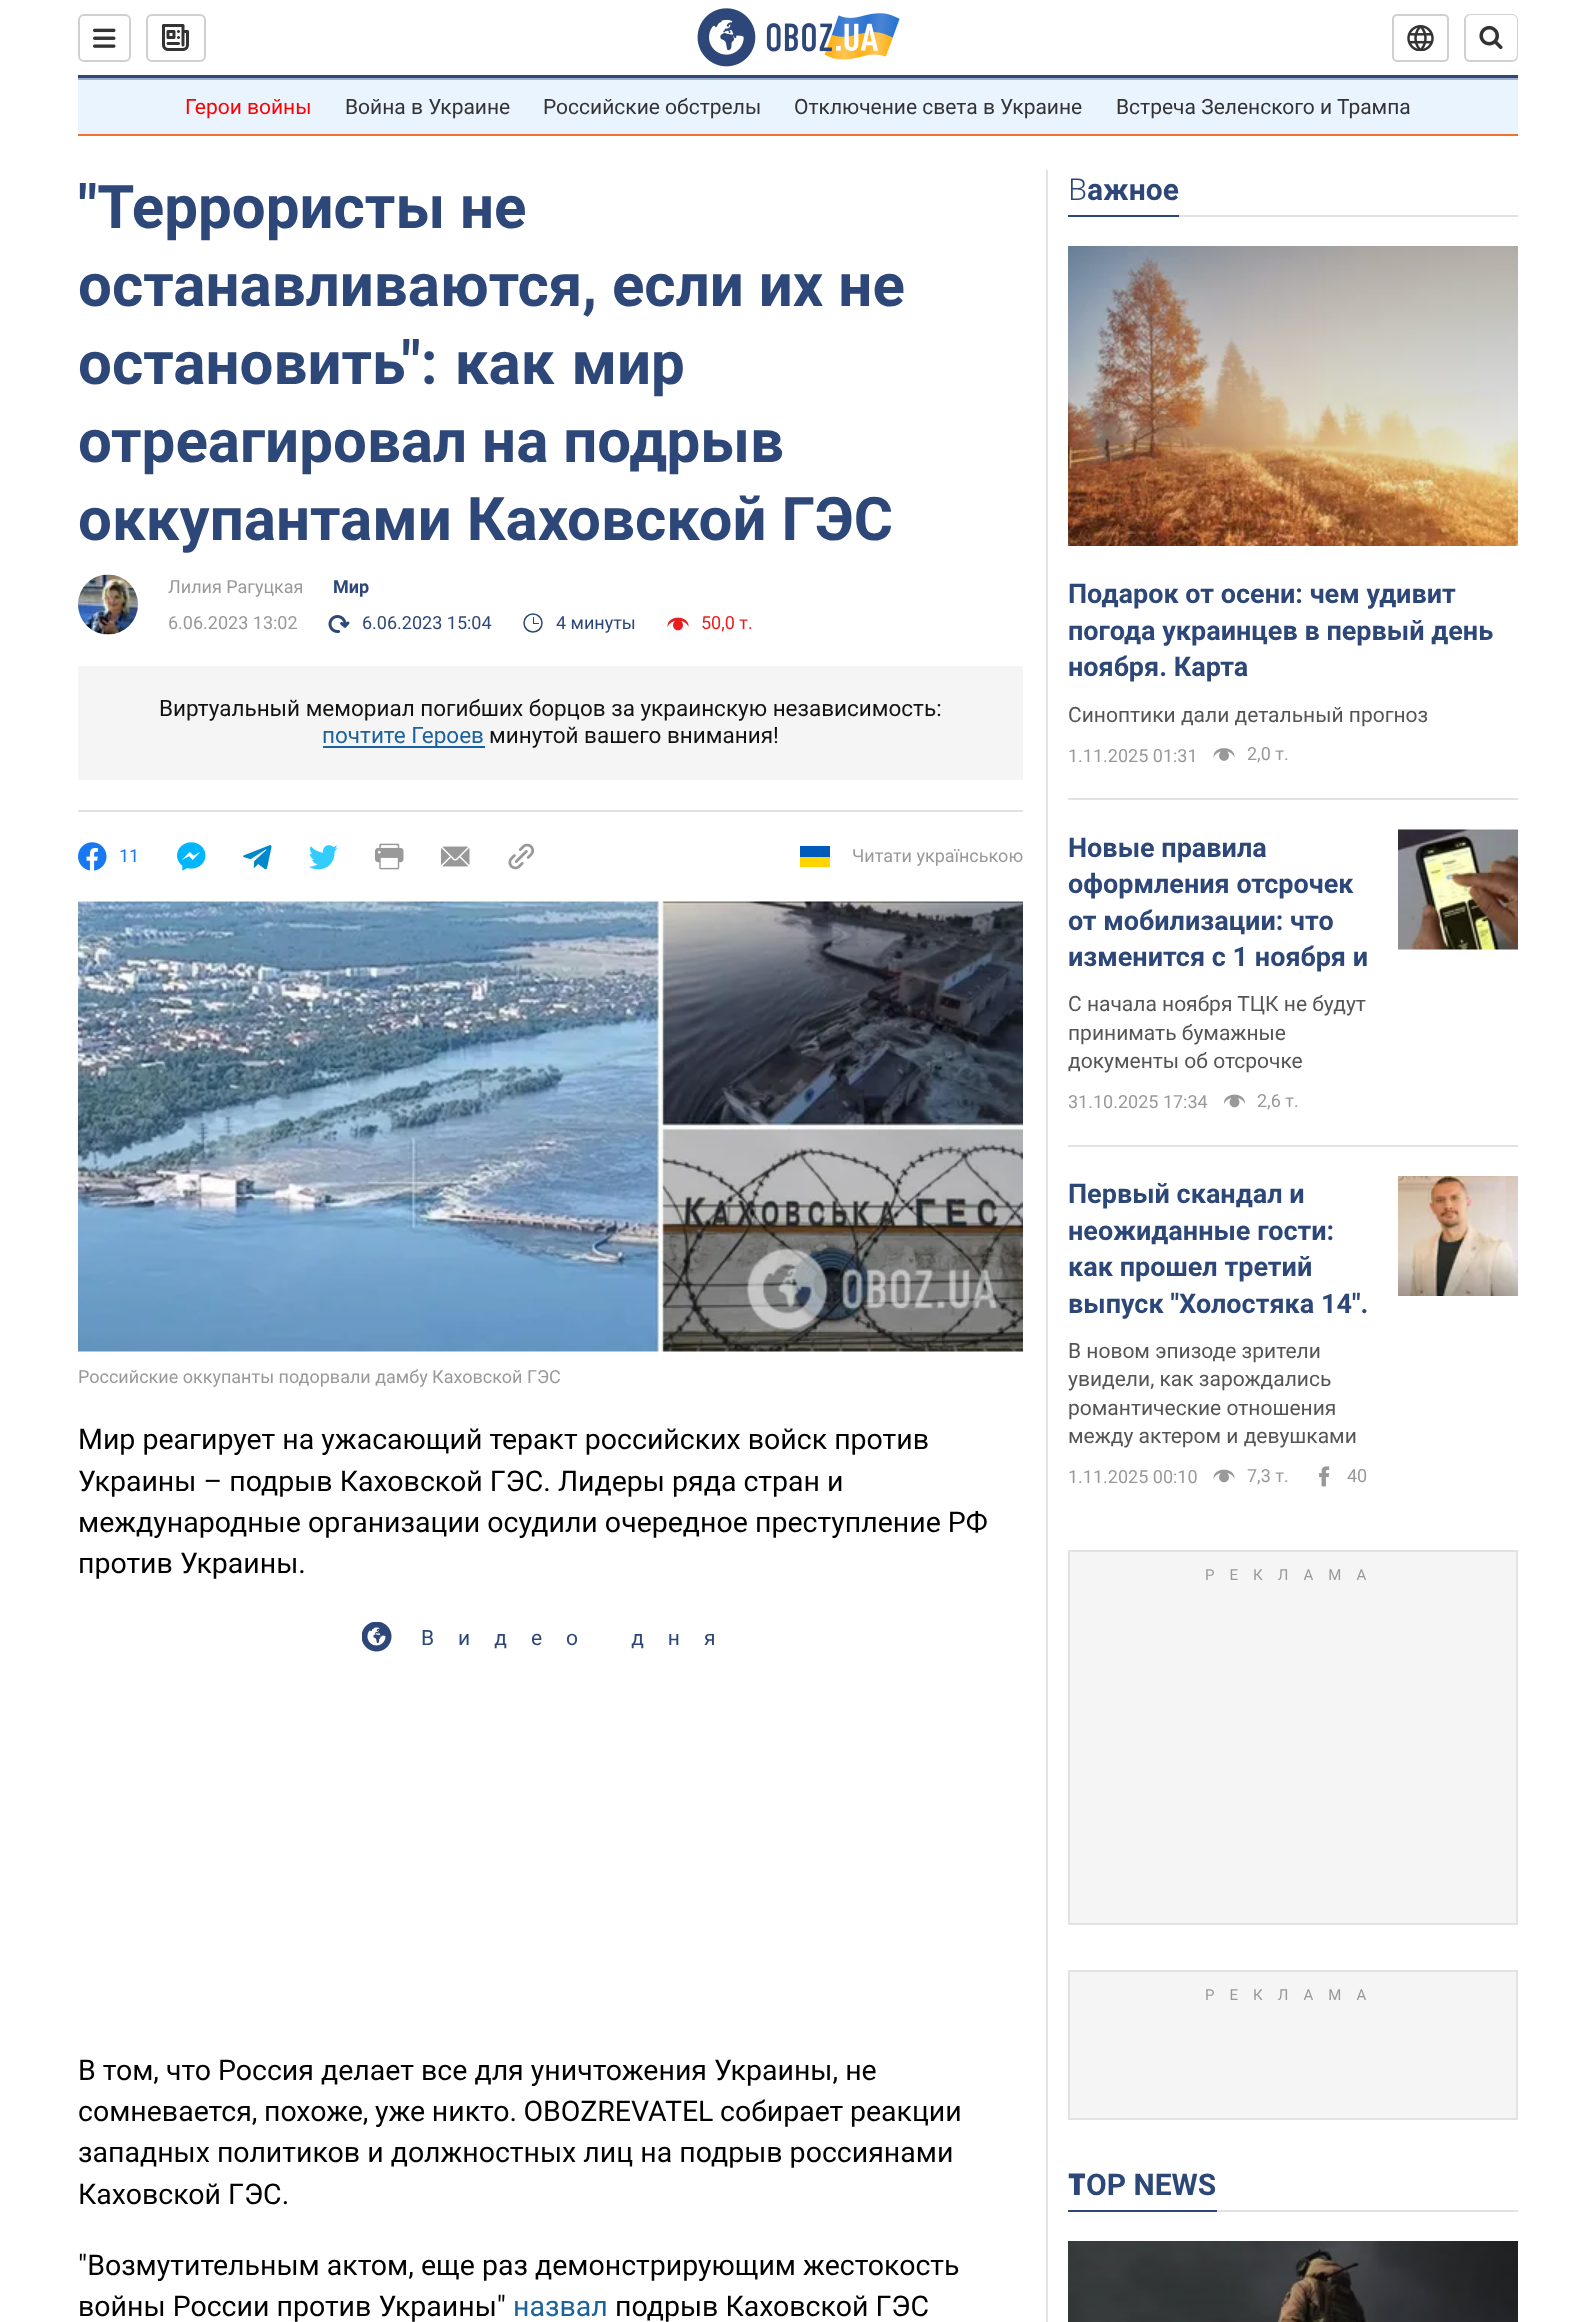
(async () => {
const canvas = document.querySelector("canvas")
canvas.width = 1595
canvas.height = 2322
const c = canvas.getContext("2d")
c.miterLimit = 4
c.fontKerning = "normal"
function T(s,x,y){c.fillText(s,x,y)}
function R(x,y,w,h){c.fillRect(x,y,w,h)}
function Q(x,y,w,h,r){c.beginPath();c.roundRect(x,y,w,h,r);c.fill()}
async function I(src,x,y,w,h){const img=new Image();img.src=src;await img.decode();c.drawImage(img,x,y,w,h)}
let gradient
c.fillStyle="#fff"
R(0,0,1595,2322)
c.fillStyle="#2d4878"
R(78,75,1440,3)
c.beginPath()
c.roundRect(79,15,51,46,5)
c.strokeStyle="#d0d0d0"
c.lineWidth=2
c.stroke()
await I("1.png",93,28,23,20)
c.beginPath()
c.roundRect(147,15,58,46,5)
c.stroke()
await I("2.png",162,24,27,27)
await I("3.png",697,8,203,59)
c.beginPath()
c.roundRect(1393,15,55,46,4)
c.stroke()
await I("4.png",1407,25,27,26)
c.beginPath()
c.roundRect(1465,15,52,46,5)
c.stroke()
c.fillStyle="#fff"
Q(1466,15,51,45,5)
await I("5.png",1479,25,24,25)
c.fillStyle="#eaf4ff"
R(78,80,1440,54)
c.fillStyle="#9eafc9"
R(78,78,1440,2)
c.fillStyle="#f17132"
R(78,134,1440,2)
c.font="21px Roboto"
c.fillStyle="#f00"
T("Герои войны",185,114)
c.fillStyle="#333"
T("Война в Украине",345,114)
T("Российские обстрелы",543,114)
T("Отключение света в Украине",794,114)
T("Встреча Зеленского и Трампа",1116,114)
c.fillStyle="#e2e2e2"
R(78,810,945,2)
c.font="bold 60px Roboto"
c.fillStyle="#2d4878"
T("\"Террористы не",78,228)
T("останавливаются, если их не",78,306)
c.wordSpacing="2px"
T("остановить\": как мир",78,384)
c.wordSpacing="0px"
T("отреагировал на подрыв",78,462)
T("оккупантами Каховской ГЭС",78,540)
await I("6.png",78,574,60,61)
c.font="18px Roboto"
c.fillStyle="#999"
T("Лилия Рагуцкая",168,593)
c.font="bold 18px Roboto"
c.fillStyle="#2d4878"
T("Мир",333,593)
c.font="18px Roboto"
c.fillStyle="#999"
T("6.06.2023 13:02",168,629)
await I("7.png",328,615,22,18)
c.fillStyle="#2d4878"
T("6.06.2023 15:04",362,629)
c.beginPath()
c.arc(533,623,9,0,7)
c.strokeStyle="#2d4878"
c.lineWidth=1.5
c.stroke()
R(533,623,6,1)
R(533,617,1,7)
T("4 минуты",556,629)
await I("8.png",667,617,22,14)
c.fillStyle="#ea1d1d"
T("50,0 т.",701,629)
c.fillStyle="#f5f5f5"
R(78,666,945,114)
c.font="22.5px Roboto"
c.fillStyle="#121212"
T("Виртуальный мемориал погибших борцов за украинскую независимость:",159,716)
c.fillStyle="#1c629c"
R(323,746,162,2)
T("почтите Героев",322,743)
c.fillStyle="#121212"
T("минутой вашего внимания!",489,743)
await I("9.png",78,842,29,29)
c.font="18px Roboto"
c.fillStyle="#1778f2"
T("11",119,862)
await I("10.png",177,842,29,29)
await I("11.png",243,845,29,25)
await I("12.png",309,845,29,25)
await I("13.png",375,843,29,27)
await I("14.png",441,846,29,21)
await I("15.png",508,843,27,27)
c.fillStyle="#005bbb"
R(800,846,30,11)
c.fillStyle="#ffd500"
R(800,857,30,10)
c.fillStyle="#999"
T("Читати українською",852,862)
await I("16.png",78,901,945,451)
T("Российские оккупанты подорвали дамбу Каховской ГЭС",78,1383)
c.font="28.5px Roboto"
c.fillStyle="#000"
T("Мир реагирует на ужасающий теракт российских войск против",78,1449)
T("Украины – подрыв Каховской ГЭС. Лидеры ряда стран и",78,1491)
T("международные организации осудили очередное преступление РФ",78,1532)
T("против Украины.",78,1573)
await I("17.png",362,1622,30,30)
c.letterSpacing="24px"
c.font="21px Roboto"
c.fillStyle="#2d4878"
T("Видео дня",421,1645)
c.letterSpacing="0px"
c.font="28.5px Roboto"
c.fillStyle="#000"
T("В том, что Россия делает все для уничтожения Украины, не",78,2080)
c.wordSpacing="-0.5px"
T("сомневается, похоже, уже никто. OBOZREVATEL собирает реакции",78,2121)
c.wordSpacing="0px"
T("западных политиков и должностных лиц на подрыв россиянами",78,2162)
T("Каховской ГЭС.",78,2204)
T("\"Возмутительным актом, еще раз демонстрирующим жестокость",78,2275)
T("войны России против Украины\"",78,2316)
c.fillStyle="#1c629c"
T("назвал",513,2316)
c.fillStyle="#000"
T("подрыв Каховской ГЭС",615,2316)
c.fillStyle="#e2e2e2"
R(1046,170,2,2152)
R(1179,215,339,2)
c.font="300 30px Noto Sans"
c.fillStyle="#2d4878"
T("В",1068,200)
c.font="bold 30px Roboto"
T("ажное",1087,200)
R(1068,215,111,2)
c.fillStyle="#e2e2e2"
R(1068,798,450,2)
await I("18.png",1068,246,450,300)
gradient = c.createLinearGradient(1293,246,1293,554)
gradient.addColorStop(0,"#0000004d")
gradient.addColorStop(1,"#00000000")
c.fillStyle = gradient
R(1068,246,450,286)
c.font="bold 27px Roboto"
c.fillStyle="#2d4878"
T("Подарок от осени: чем удивит",1068,603)
T("погода украинцев в первый день",1068,640)
T("ноября. Карта",1068,676)
c.font="21px Roboto"
c.fillStyle="#555"
T("Синоптики дали детальный прогноз",1068,722)
c.font="18px Roboto"
c.fillStyle="#999"
T("1.11.2025 01:31",1068,762)
await I("19.png",1213,748,22,13)
T("2,0 т.",1247,760)
c.fillStyle="#e2e2e2"
R(1068,1145,450,2)
c.font="bold 27px Roboto"
c.fillStyle="#2d4878"
T("Новые правила",1068,857)
T("оформления отсрочек",1068,893)
T("от мобилизации: что",1068,930)
T("изменится с 1 ноября и",1068,966)
c.font="21px Roboto"
c.fillStyle="#555"
T("С начала ноября ТЦК не будут",1068,1011)
T("принимать бумажные",1068,1040)
T("документы об отсрочке",1068,1068)
c.font="18px Roboto"
c.fillStyle="#999"
T("31.10.2025 17:34",1068,1108)
await I("20.png",1224,1094,21,14)
T("2,6 т.",1257,1107)
await I("21.png",1398,829,120,121)
c.font="bold 27px Roboto"
c.fillStyle="#2d4878"
T("Первый скандал и",1068,1203)
T("неожиданные гости:",1068,1240)
T("как прошел третий",1068,1276)
T("выпуск \"Холостяка 14\".",1068,1313)
c.font="21px Roboto"
c.fillStyle="#555"
T("В новом эпизоде зрители",1068,1358)
T("увидели, как зарождались",1068,1386)
T("романтические отношения",1068,1415)
T("между актером и девушками",1068,1443)
c.font="18px Roboto"
c.fillStyle="#999"
T("1.11.2025 00:10",1068,1483)
await I("22.png",1213,1469,22,14)
T("7,3 т.",1247,1482)
await I("23.png",1319,1466,11,21)
T("40",1347,1482)
await I("24.png",1398,1176,120,120)
c.fillStyle="#f5f5f5"
c.beginPath()
c.rect(1069,1551,448,373)
c.fill()
c.strokeStyle="#e2e2e2"
c.lineWidth=2
c.stroke()
c.letterSpacing="15px"
c.font="15px Roboto"
c.fillStyle="#999"
T("РЕКЛАМА",1205,1580)
c.fillStyle="#f5f5f5"
c.beginPath()
c.rect(1069,1971,448,148)
c.fill()
c.stroke()
c.fillStyle="#999"
T("РЕКЛАМА",1205,2000)
c.fillStyle="#e2e2e2"
R(1217,2210,301,2)
c.letterSpacing="0px"
c.font="900 30px Noto Sans"
c.fillStyle="#2d4878"
T("T",1068,2195)
c.font="bold 30px Roboto"
T("OP NEWS",1086,2195)
R(1068,2210,149,2)
await I("25.png",1068,2241,450,81)
})()
